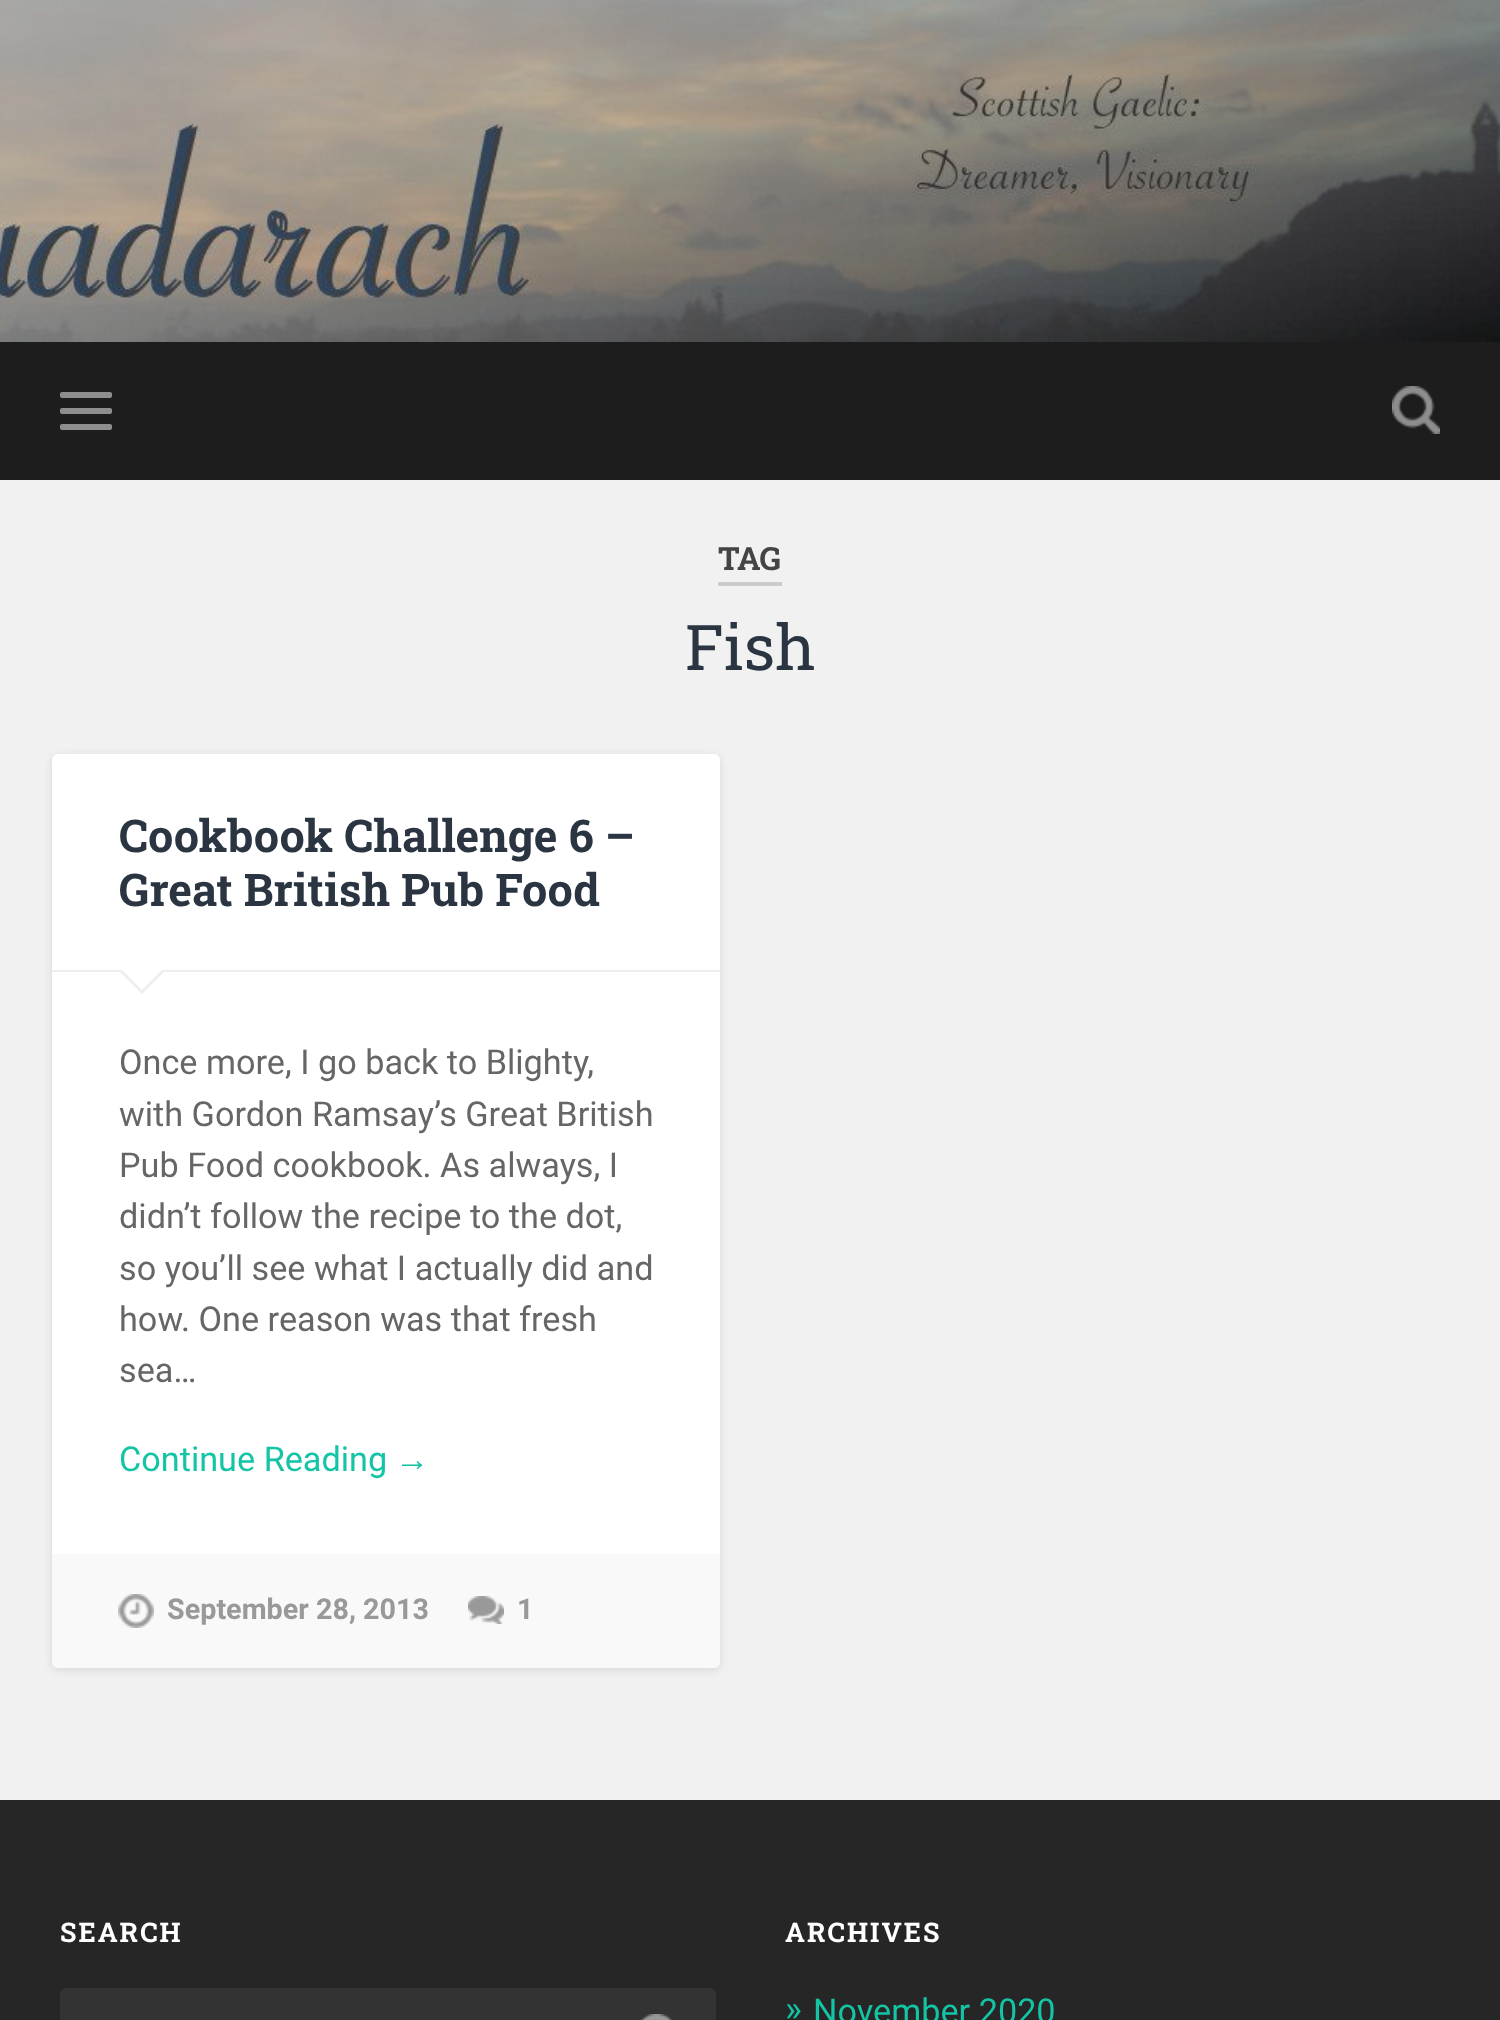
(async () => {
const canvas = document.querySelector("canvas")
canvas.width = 1500
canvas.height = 2020
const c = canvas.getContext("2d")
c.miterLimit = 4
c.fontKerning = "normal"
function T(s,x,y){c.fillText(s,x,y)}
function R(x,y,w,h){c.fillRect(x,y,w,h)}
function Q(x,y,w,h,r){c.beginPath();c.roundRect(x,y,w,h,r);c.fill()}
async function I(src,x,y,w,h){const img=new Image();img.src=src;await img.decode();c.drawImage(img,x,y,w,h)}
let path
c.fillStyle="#f1f1f1"
R(0,0,1500,2020)
await I("1.png",0,0,1500,342)
c.fillStyle="#1d1d1d"
R(0,342,1500,138)
c.fillStyle="#8e8e8e"
Q(60,392,52,6,2)
Q(60,408,52,6,2)
Q(60,424,52,6,2)
await I("2.png",1392,386,48,48)
c.fillStyle="#ccc"
R(718,582,64,4)
c.font="bold 32px Roboto Slab"
c.fillStyle="#444"
T("TAG",718,570)
c.font="63px Roboto Slab"
c.fillStyle="#2b3542"
T("Fish",685,670)
c.fillStyle="#0000001a"
c.filter="blur(4px)"
c.beginPath()
c.roundRect(52,756,668,914,6)
c.fill()
c.filter="none"
c.fillStyle="#fff"
Q(52,754,668,914,6)
c.fillStyle="#eee"
R(52,970,668,2)
c.font="bold 45px Roboto Slab"
c.fillStyle="#2b3542"
T("Cookbook Challenge 6 –",119,852)
T("Great British Pub Food",119,906)
c.fillStyle="#eee"
path = new Path2D("M118 970h48l-24 24z")
c.fill(path)
c.fillStyle="#fff"
path = new Path2D("M120 968h44l-22 22z")
c.fill(path)
c.font="34.25px Roboto"
c.fillStyle="#666"
T("Once more, I go back to Blighty,",119,1074)
T("with Gordon Ramsay’s Great British",119,1126)
T("Pub Food cookbook. As always, I",119,1177)
T("didn’t follow the recipe to the dot,",119,1228)
T("so you’ll see what I actually did and",119,1280)
T("how. One reason was that fresh",119,1331)
T("sea…",119,1382)
c.fillStyle="#13c4a5"
T("Continue Reading",119,1471)
c.font="34.25px Liberation Sans"
T("→",395,1471)
c.fillStyle="#f9f9f9"
c.beginPath()
c.roundRect(52,1554,668,114,[0,0,6,6])
c.fill()
await I("3.png",118,1594,36,34)
c.font="bold 28.75px Roboto"
c.fillStyle="#999"
T("September 28, 2013",167,1619)
await I("4.png",468,1596,36,28)
T("1",517,1619)
c.fillStyle="#262626"
R(0,1800,1500,220)
c.letterSpacing="2px"
c.font="bold 27px Roboto Slab"
c.fillStyle="#fff"
T("SEARCH",60,1942)
c.fillStyle="#333"
Q(60,1988,656,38,6)
await I("5.png",640,2014,33,6)
c.fillStyle="#fff"
T("ARCHIVES",785,1942)
c.letterSpacing="0px"
c.font="36px Roboto"
c.fillStyle="#13c4a5"
T("»",785,2021)
c.font="34.25px Roboto"
T("November 2020",813,2023)
})()
